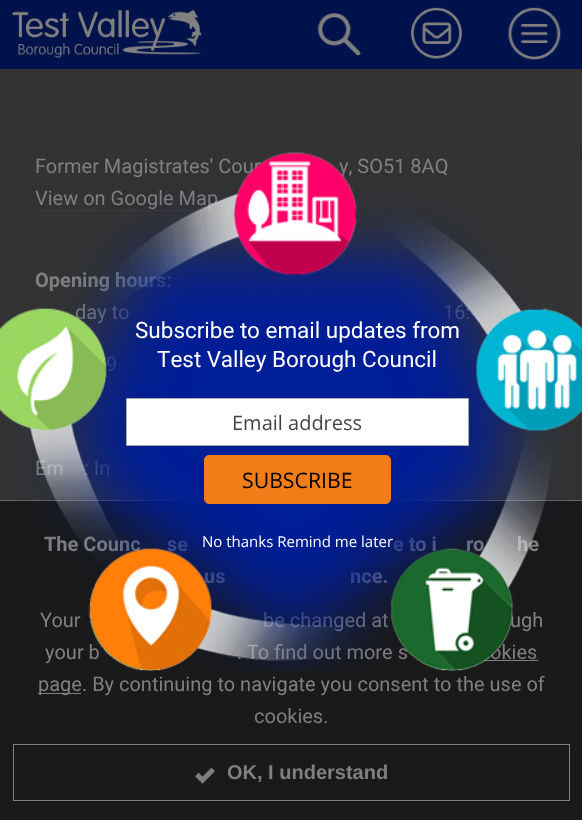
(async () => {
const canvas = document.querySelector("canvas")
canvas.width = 582
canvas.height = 820
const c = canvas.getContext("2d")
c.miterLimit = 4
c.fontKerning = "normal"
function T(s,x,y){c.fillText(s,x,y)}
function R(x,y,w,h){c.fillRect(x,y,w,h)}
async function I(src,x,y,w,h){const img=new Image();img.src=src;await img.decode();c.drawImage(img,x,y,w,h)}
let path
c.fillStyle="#333"
R(0,0,582,820)
c.fillStyle="#00124b"
R(0,0,582,69)
await I("1.png",12,10,190,48)
await I("2.png",317,13,45,43)
await I("3.png",411,7,51,52)
await I("4.png",508,7,53,53)
c.font="20px Roboto"
c.fillStyle="#808080"
T("Former Magistrates' Cour",35,173)
T("y, SO51 8AQ",339,173)
path = new Path2D("M35 210.5h194")
c.strokeStyle="#454545"
c.lineWidth=1.2
c.setLineDash([1.25,1.25])
c.stroke(path)
T("View on Google Map",35,205)
c.font="bold 20px Roboto"
T("Opening hours:",35,287)
c.font="20px Roboto"
T("day to",75,319)
T("16:",443,319)
T("9",106,371)
path = new Path2D("M72.5 377h128.5")
c.stroke(path)
T("Em",35,475)
T(": In",84,475)
path = new Path2D("M94 480.5h200")
c.stroke(path)
c.fillStyle="#1a1a1a"
R(0,501,582,319)
c.fillStyle="#666"
R(0,500,582,1)
c.font="bold 20px Roboto"
c.fillStyle="#808080"
T("The Counc",44,551)
T("se",167,551)
T("e to i",393,551)
T("ro",466,551)
T("he",517,551)
T("us",204,583)
T("nce.",350,583)
c.font="20px Roboto"
T("Your",40,627)
T("be changed at",263,627)
T("ugh",510,627)
T("your b",45,659)
T(". To find out more s",237,659)
T("okies",490,659)
R(483,660,55,1)
await I("5.png",0,152,582,519)
await I("6.png",580,146,2,13)
c.font="22.5px Roboto"
c.fillStyle="#fff"
T("Subscribe to email updates from",135,338)
T("Test Valley Borough Council",157,367)
c.beginPath()
c.rect(126.5,398.5,342,47)
c.fill()
c.strokeStyle="#aaa"
c.lineWidth=1
c.setLineDash([])
c.stroke()
c.font="20px Open Sans"
c.fillStyle="#444"
T("Email address",232,430)
c.fillStyle="#f07d17"
c.beginPath()
c.roundRect(204.5,455.5,186,48,4.5)
c.fill()
c.strokeStyle="#f07d17"
c.stroke()
c.font="21.25px Open Sans"
c.fillStyle="#000"
T("SUBSCRIBE",242,488)
c.font="15px Open Sans"
c.fillStyle="#fff"
T("No thanks Remind me later",202,547)
c.fillStyle="#808080"
R(38,693,43,1)
c.font="20px Roboto"
T("page. By continuing to navigate you consent to the use of",38,691)
T("cookies.",254,723)
c.strokeStyle="#808080"
c.strokeRect(13.5,744.5,556,56)
await I("7.png",195,767,20,17)
c.font="bold 20px Liberation Sans"
T("OK, I understand",227,779)
})()
